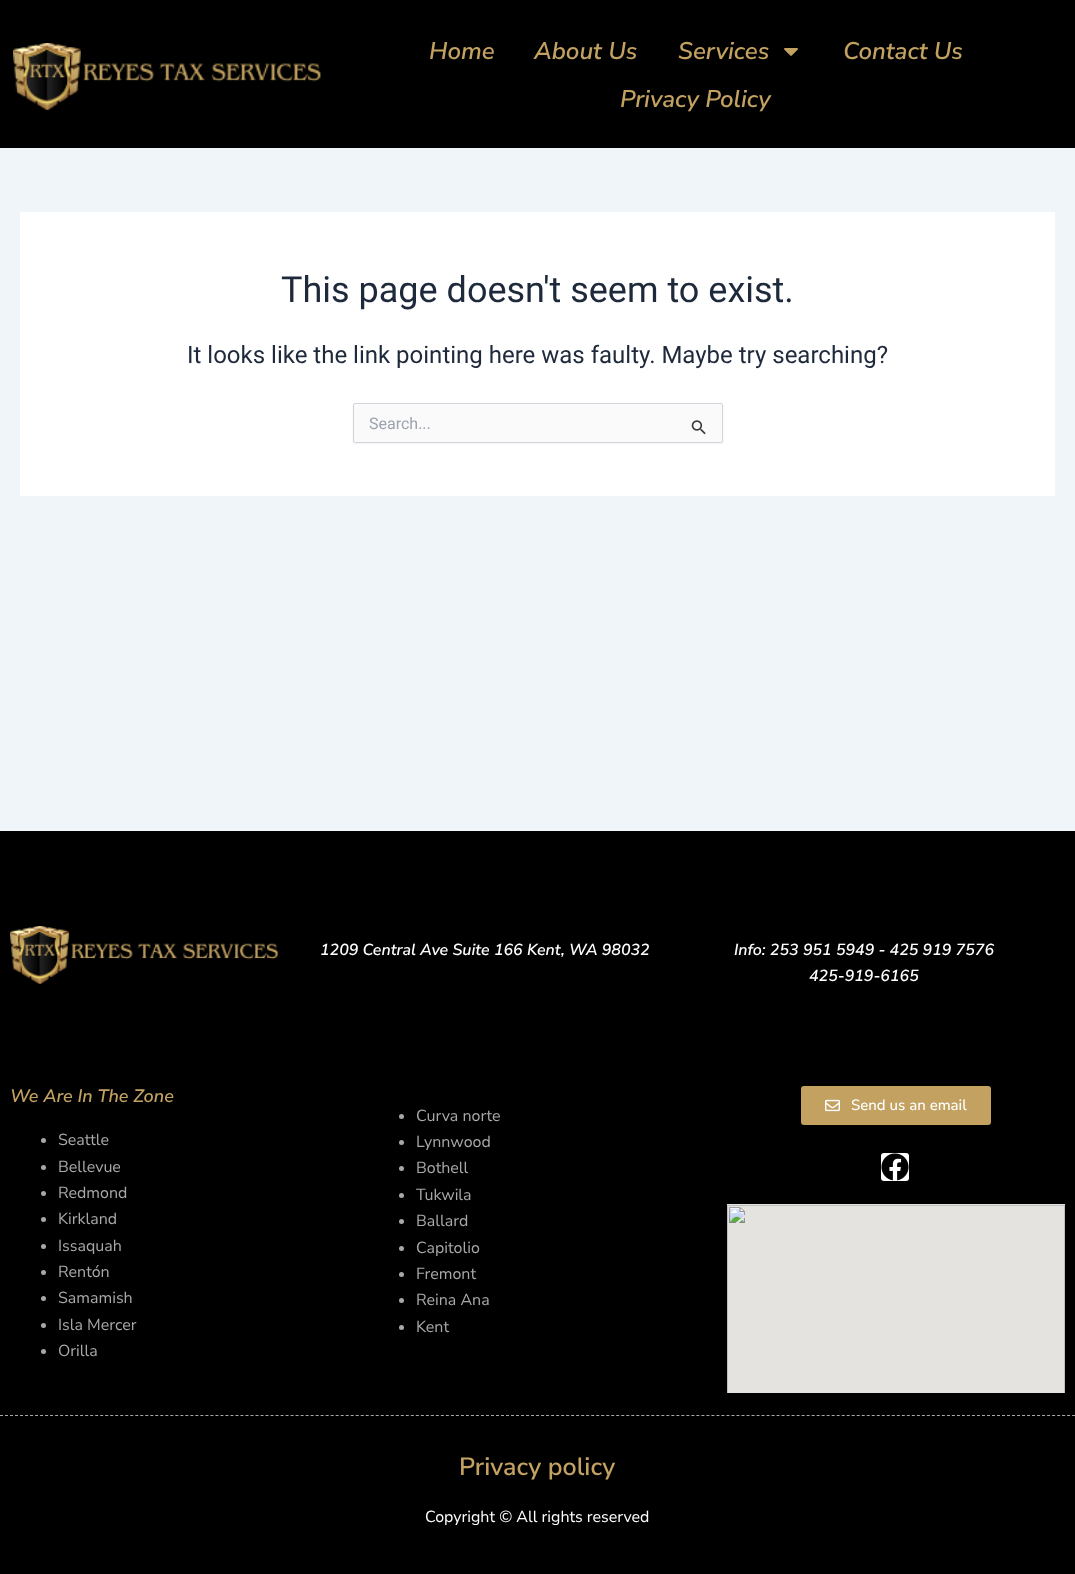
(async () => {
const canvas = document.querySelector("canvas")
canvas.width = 1075
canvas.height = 1574
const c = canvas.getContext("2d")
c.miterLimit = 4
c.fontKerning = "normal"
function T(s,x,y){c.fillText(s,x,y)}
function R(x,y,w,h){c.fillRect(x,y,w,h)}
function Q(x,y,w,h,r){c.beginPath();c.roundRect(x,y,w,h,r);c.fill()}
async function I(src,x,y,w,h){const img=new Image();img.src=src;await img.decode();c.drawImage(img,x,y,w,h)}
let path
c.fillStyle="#f0f5fa"
R(0,0,1075,1574)
c.fillStyle="#000"
R(0,0,1075,148)
await I("1.png",13,43,308,67)
c.font="italic 600 24px Nunito Sans"
c.fillStyle="#c2a161"
T("Home",429,59)
T("About Us",534,59)
T("Services",678,59)
await I("2.png",784,48,14,8)
T("Contact Us",843,59)
T("Privacy Policy",620,107)
c.fillStyle="#fff"
R(20,212,1035,284)
c.font="36px Roboto"
c.fillStyle="#1e293b"
T("This page doesn't seem to exist.",281,302)
c.font="24px Roboto"
T("It looks like the link pointing here was faulty. Maybe try searching?",187,363)
c.fillStyle="#0000000d"
c.filter="blur(1px)"
c.beginPath()
c.roundRect(353,404,370,40,2)
c.fill()
c.filter="none"
c.fillStyle="#fafafa"
c.beginPath()
c.roundRect(353.5,403.5,369,39,1.5)
c.fill()
c.strokeStyle="#d1d5db"
c.stroke()
c.font="16px Roboto"
c.fillStyle="#9ca3af"
T("Search...",369,429)
await I("3.png",691,420,15,15)
c.fillStyle="#000"
R(0,831,1075,743)
await I("4.png",10,926,268,58)
c.font="italic 600 16px Nunito Sans"
c.fillStyle="#fff"
T("1209 Central Ave Suite 166 Kent, WA 98032",320,955)
T("Info: 253 951 5949 - 425 919 7576",734,955)
T("425-919-6165",809,981)
c.font="italic 600 18px Nunito Sans"
c.fillStyle="#c2a161"
T("We Are In The Zone",10,1102)
c.fillStyle="#a8a8a8"
c.beginPath()
c.arc(43.5,1140.5,2.5,0,7)
c.fill()
c.font="16px Nunito Sans"
T("Seattle",58,1145)
c.beginPath()
c.arc(43.5,1167.5,2.5,0,7)
c.fill()
T("Bellevue",58,1172)
c.beginPath()
c.arc(43.5,1193.5,2.5,0,7)
c.fill()
T("Redmond",58,1198)
c.beginPath()
c.arc(43.5,1219.5,2.5,0,7)
c.fill()
T("Kirkland",58,1224)
c.beginPath()
c.arc(43.5,1246.5,2.5,0,7)
c.fill()
T("Issaquah",58,1251)
c.beginPath()
c.arc(43.5,1272.5,2.5,0,7)
c.fill()
T("Rentón",58,1277)
c.beginPath()
c.arc(43.5,1298.5,2.5,0,7)
c.fill()
T("Samamish",58,1303)
c.beginPath()
c.arc(43.5,1325.5,2.5,0,7)
c.fill()
T("Isla Mercer",58,1330)
c.beginPath()
c.arc(43.5,1351.5,2.5,0,7)
c.fill()
T("Orilla",58,1356)
c.fillStyle="#c2a161"
Q(801,1086,190,39,3)
await I("5.png",825,1099,15,13)
c.font="500 15px Nunito Sans"
c.fillStyle="#fff"
T("Send us an email",851,1110)
Q(881,1153,28,28,3)
await I("6.png",881,1153,28,28)
await I("7.png",727,1204,338,189)
c.fillStyle="#a8a8a8"
c.beginPath()
c.arc(401.5,1116.5,2.5,0,7)
c.fill()
c.font="16px Nunito Sans"
T("Curva norte",416,1121)
c.beginPath()
c.arc(401.5,1142.5,2.5,0,7)
c.fill()
T("Lynnwood",416,1147)
c.beginPath()
c.arc(401.5,1168.5,2.5,0,7)
c.fill()
T("Bothell",416,1173)
c.beginPath()
c.arc(401.5,1195.5,2.5,0,7)
c.fill()
T("Tukwila",416,1200)
c.beginPath()
c.arc(401.5,1221.5,2.5,0,7)
c.fill()
T("Ballard",416,1226)
c.beginPath()
c.arc(401.5,1248.5,2.5,0,7)
c.fill()
T("Capitolio",416,1253)
c.beginPath()
c.arc(401.5,1274.5,2.5,0,7)
c.fill()
T("Fremont",416,1279)
c.beginPath()
c.arc(401.5,1300.5,2.5,0,7)
c.fill()
T("Reina Ana",416,1305)
c.beginPath()
c.arc(401.5,1327.5,2.5,0,7)
c.fill()
T("Kent",416,1332)
path = new Path2D("M0 1415.5h1075")
c.strokeStyle="#a8a8a8"
c.setLineDash([3,2.01])
c.stroke(path)
c.font="600 25px Nunito Sans"
c.fillStyle="#c2a161"
T("Privacy policy",459,1475)
c.font="16px Nunito Sans"
c.fillStyle="#fff"
T("Copyright © All rights reserved",425,1522)
})()
